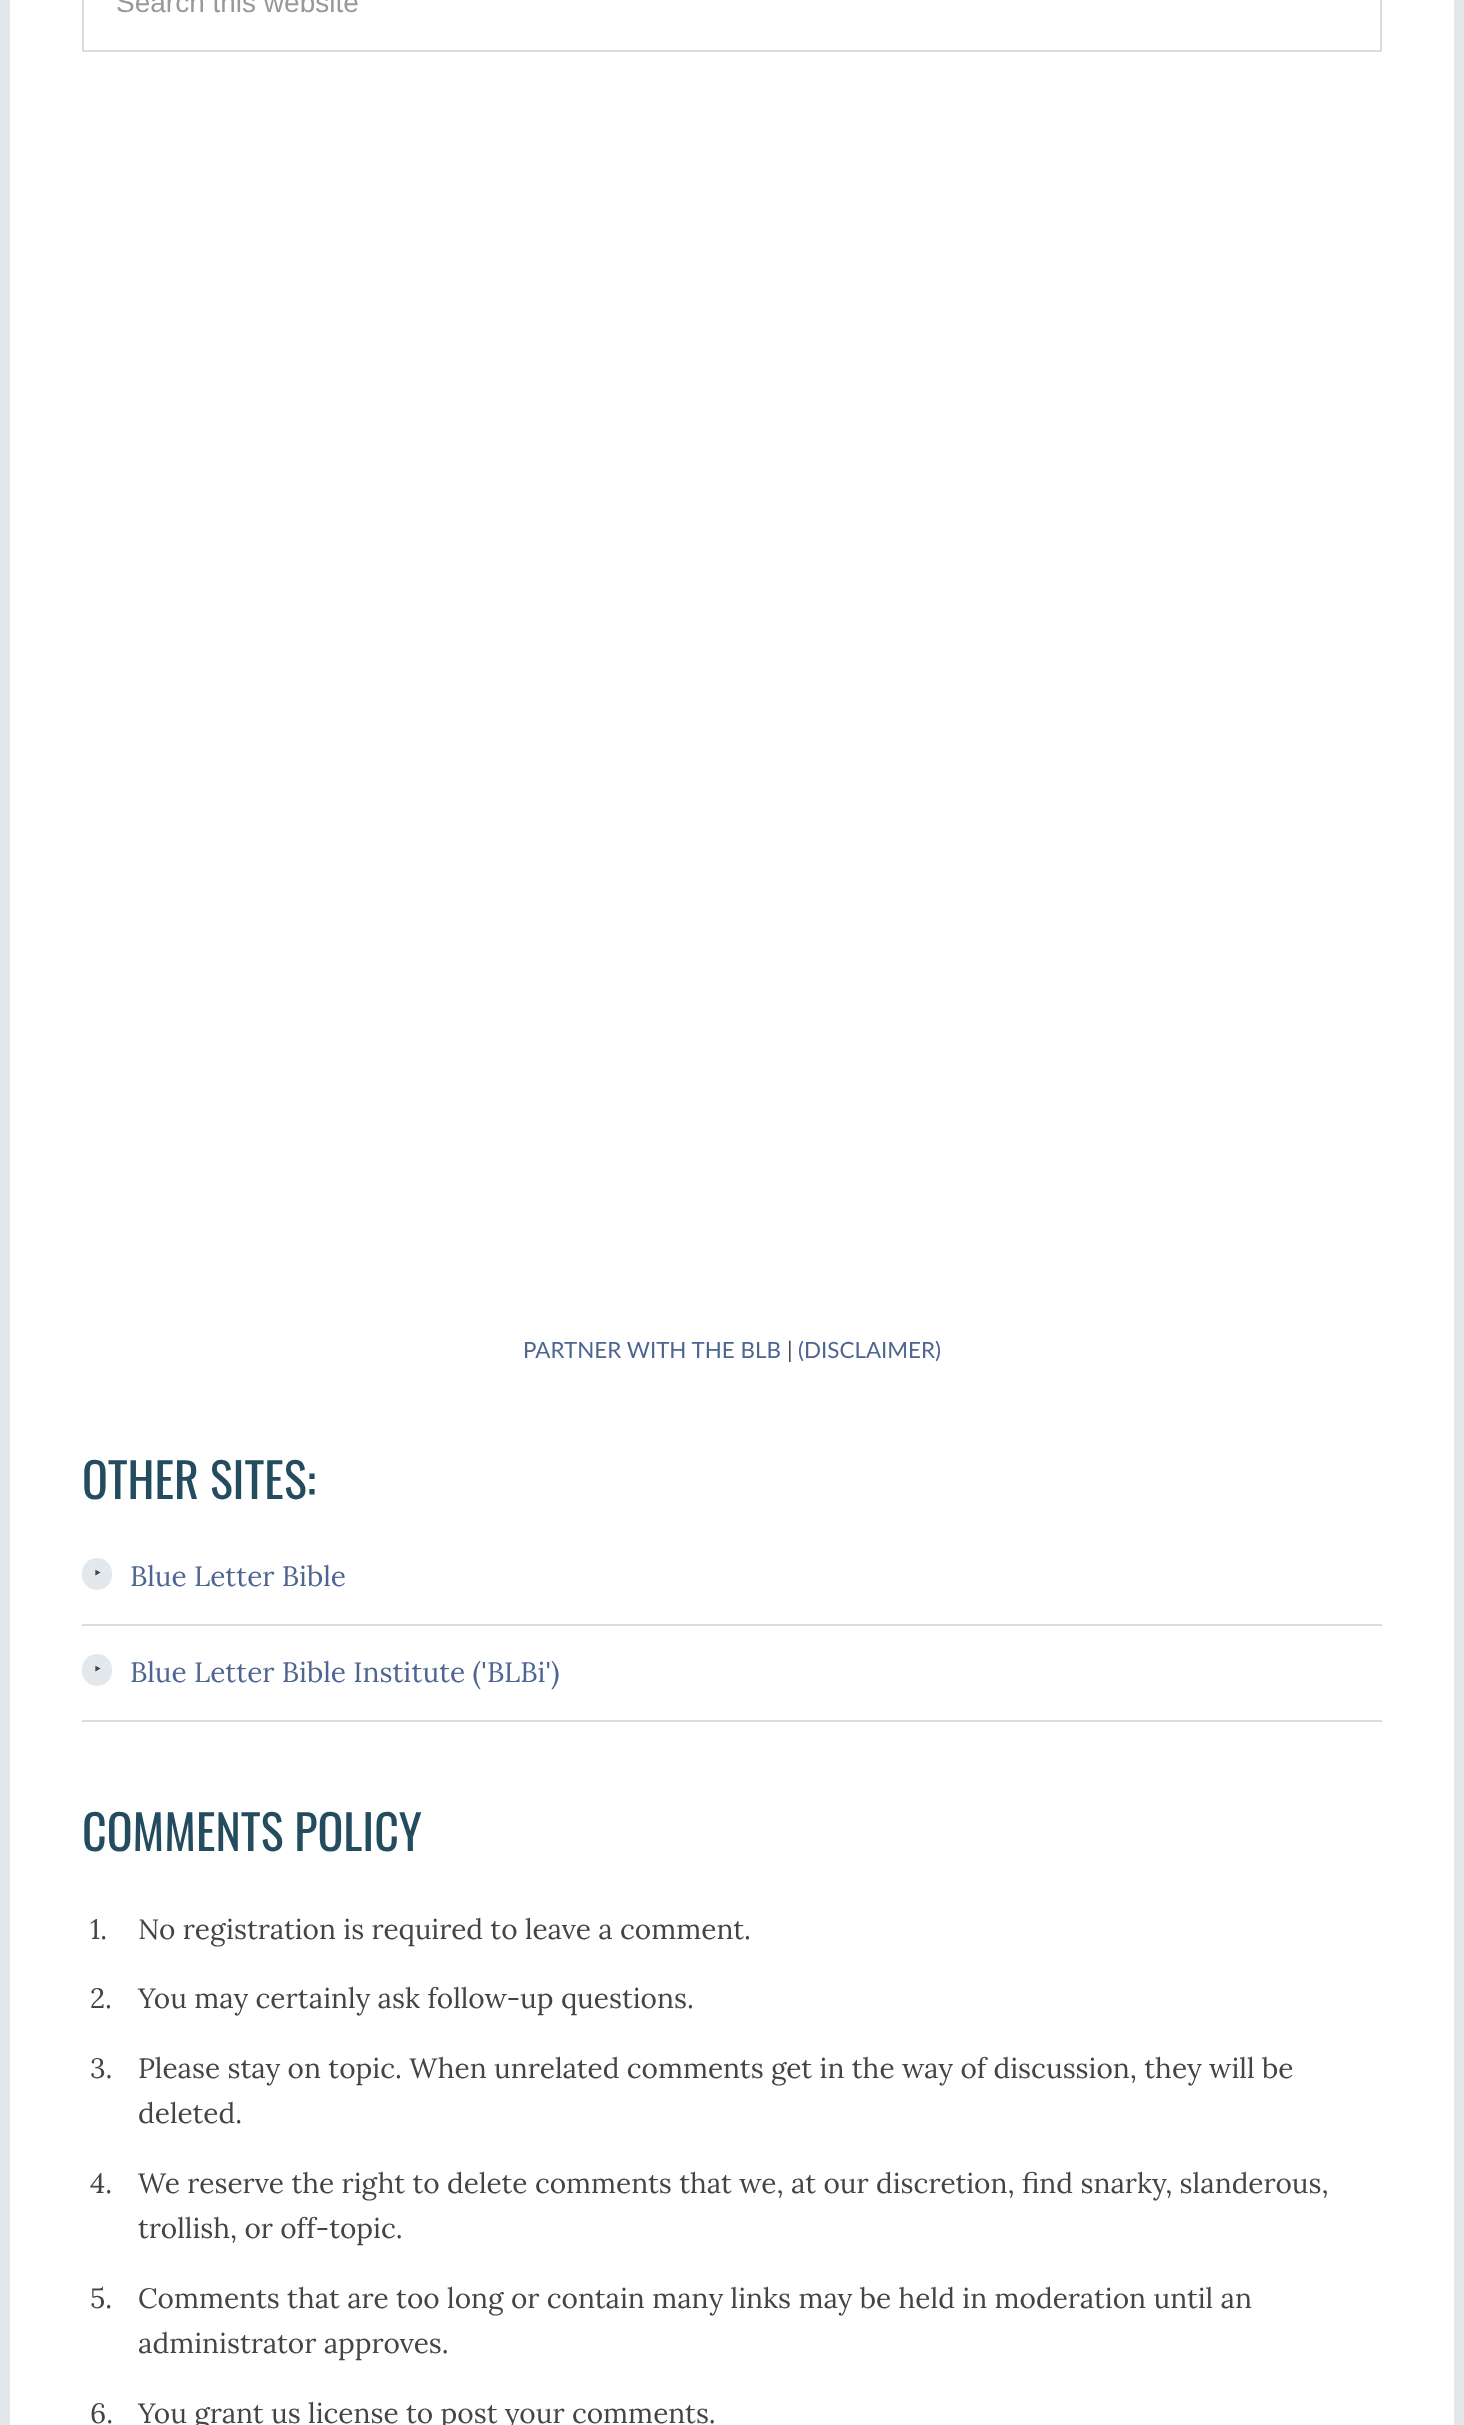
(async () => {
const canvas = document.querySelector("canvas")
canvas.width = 1464
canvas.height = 2425
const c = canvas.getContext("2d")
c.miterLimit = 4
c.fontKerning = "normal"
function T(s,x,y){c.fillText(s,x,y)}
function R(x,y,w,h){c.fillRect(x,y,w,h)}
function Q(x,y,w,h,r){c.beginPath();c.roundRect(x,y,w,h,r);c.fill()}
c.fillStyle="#e2e8eb"
R(0,0,1464,2425)
c.fillStyle="#fff"
R(10,0,1444,2425)
c.strokeStyle="#ddd"
c.lineWidth=2
c.strokeRect(83,-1,1298,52)
c.font="28px Liberation Sans"
c.fillStyle="#999"
T("Search this website",116,12)
c.font="22.4px Lato"
c.fillStyle="#4d6590"
T("PARTNER WITH THE BLB",523,1358)
c.fillStyle="#444"
T("|",787,1358)
c.fillStyle="#4d6590"
T("(DISCLAIMER)",798,1358)
c.font="48px Oswald"
c.fillStyle="#244c5f"
T("OTHER SITES:",82,1499)
c.fillStyle="#ddd"
R(82,1624,1300,2)
c.fillStyle="#e2e8eb"
Q(82,1558,30,32,15)
c.font="20px Noto Sans"
c.fillStyle="#444"
T("‣",94,1580)
c.font="28px Lora"
c.fillStyle="#4d6590"
T("Blue Letter Bible",130,1586)
c.fillStyle="#ddd"
R(82,1720,1300,2)
c.fillStyle="#e2e8eb"
Q(82,1654,30,32,15)
c.font="20px Noto Sans"
c.fillStyle="#444"
T("‣",94,1676)
c.font="28px Lora"
c.fillStyle="#4d6590"
T("Blue Letter Bible Institute ('BLBi')",130,1682)
c.font="48px Oswald"
c.fillStyle="#244c5f"
T("COMMENTS POLICY",82,1851)
c.font="28px Lora"
c.fillStyle="#444"
T("1.",90,1939)
T("No registration is required to leave a comment.",138,1939)
T("2.",90,2008)
T("You may certainly ask follow-up questions.",138,2008)
T("3.",90,2078)
T("Please stay on topic. When unrelated comments get in the way of discussion, they will be",138,2078)
T("deleted.",138,2123)
T("4.",90,2193)
T("We reserve the right to delete comments that we, at our discretion, find snarky, slanderous,",138,2193)
T("trollish, or off-topic.",138,2238)
T("5.",90,2308)
T("Comments that are too long or contain many links may be held in moderation until an",138,2308)
T("administrator approves.",138,2353)
T("6.",90,2423)
T("You grant us license to post your comments.",138,2423)
})()
